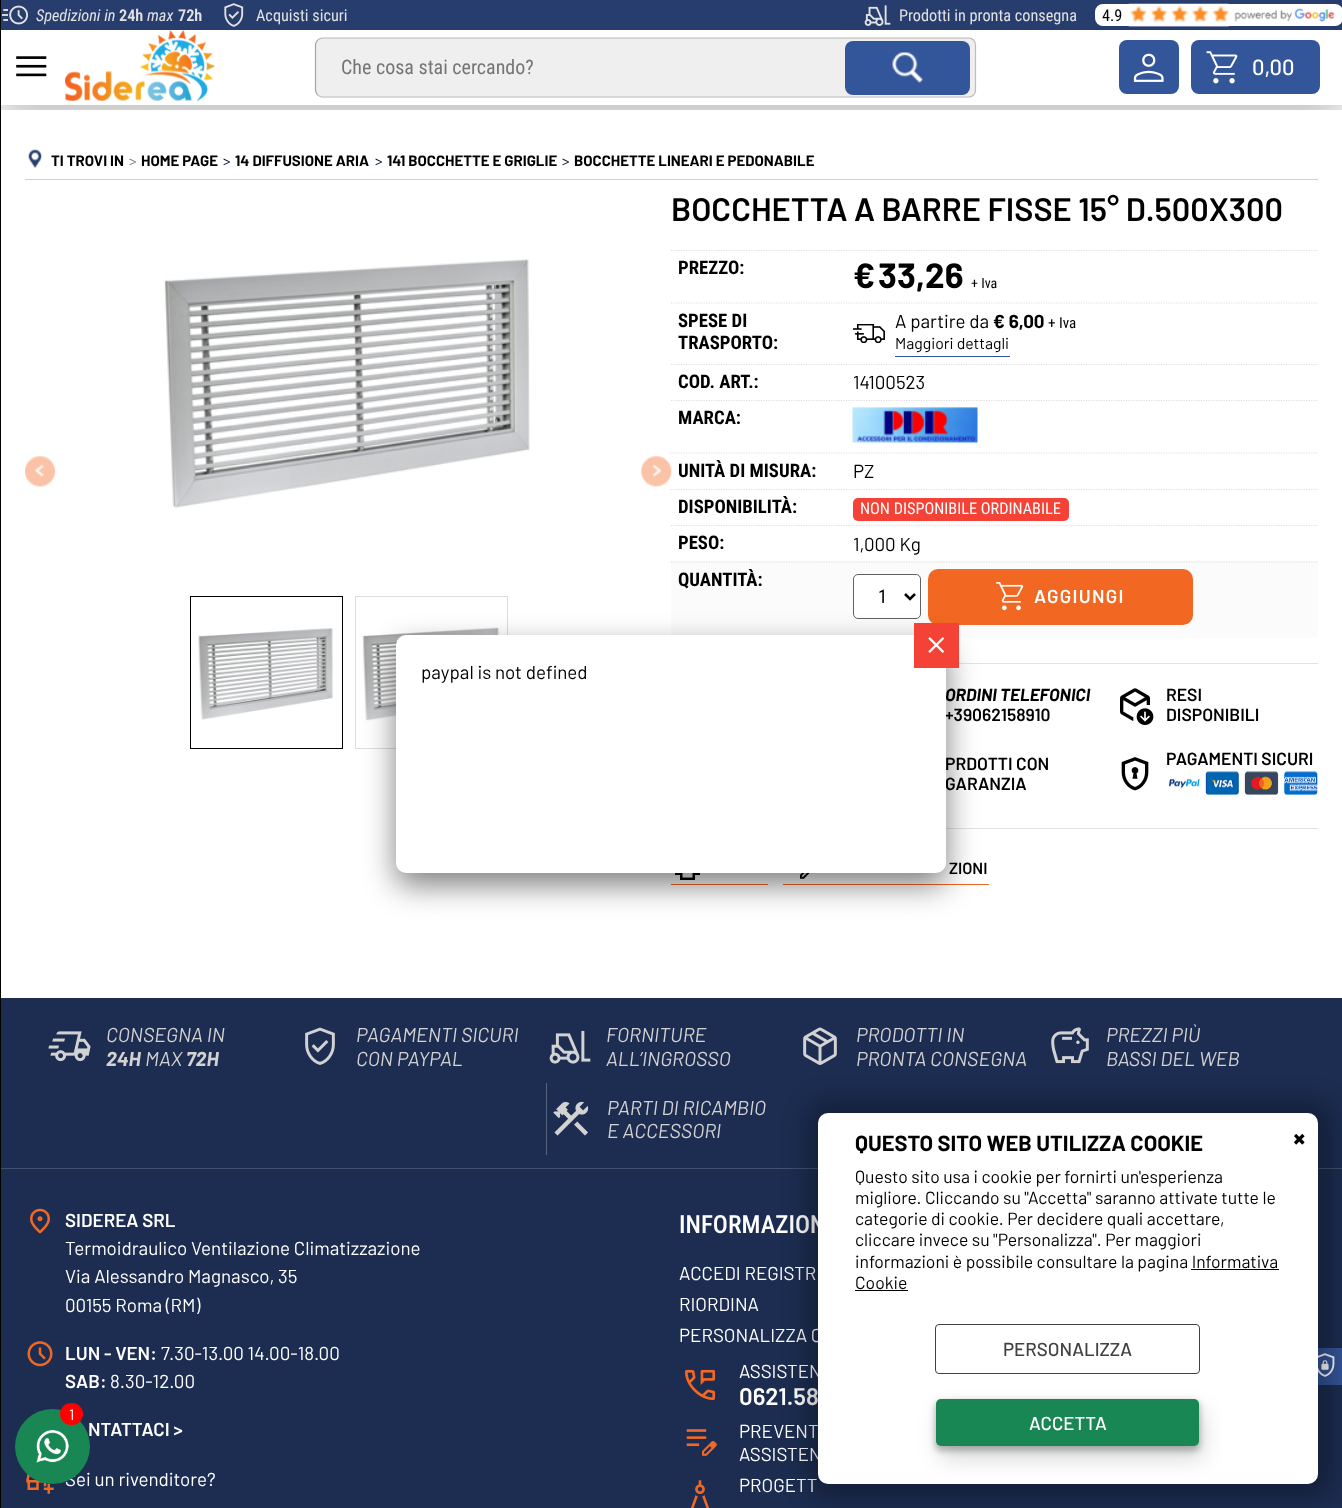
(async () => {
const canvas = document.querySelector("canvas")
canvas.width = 1342
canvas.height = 1508
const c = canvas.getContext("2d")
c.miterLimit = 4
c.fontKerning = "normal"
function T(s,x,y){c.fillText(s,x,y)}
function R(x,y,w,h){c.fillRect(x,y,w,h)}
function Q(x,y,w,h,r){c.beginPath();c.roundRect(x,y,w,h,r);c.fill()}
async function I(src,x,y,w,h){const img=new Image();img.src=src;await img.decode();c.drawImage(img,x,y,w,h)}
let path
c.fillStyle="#fff"
R(0,0,1342,1508)
c.save()
c.beginPath()
c.rect(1,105,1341,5)
c.clip()
c.fillStyle="#00000040"
c.filter="blur(21px)"
c.beginPath()
c.rect(-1,44,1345,77)
c.fill()
c.filter="none"
c.restore()
c.fillStyle="#43516f"
R(0,1168,1342,1)
c.fillStyle="#000"
R(0,0,1,1508)
c.fillStyle="#263d6d"
R(1,0,1341,30)
await I("1.png",2,5,26,20)
c.font="italic 16.25px Roboto Condensed"
c.fillStyle="#e2e2e2"
T("Spedizioni in",36,21)
c.font="600 16.25px Roboto Condensed"
T("24h",119,21)
c.font="italic 16.25px Roboto Condensed"
T("max",147,21)
c.font="600 16.25px Roboto Condensed"
T("72h",178,21)
await I("2.png",224,3,20,24)
c.font="16.25px Roboto Condensed"
T("Acquisti sicuri",256,21)
await I("3.png",864,5,27,21)
T("Prodotti in pronta consegna",899,21)
c.fillStyle="#fff"
Q(1095,4,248,22,8)
c.fillStyle="#000"
T("4.9",1102,21)
await I("4.png",1128,3,101,24)
await I("5.png",1234,8,101,14)
await I("6.png",16,56,31,21)
await I("7.png",65,30,150,71)
c.fillStyle="#efefef"
Q(315,38,661,60,8)
path = new Path2D("M317.5 40c1.5-1 3-2 5-2h646.5c1.5 0 3.5 1 4.5 2")
c.strokeStyle="#b5b5b5"
c.lineWidth=1.2
c.stroke(path)
path = new Path2D("M973.5 40c1.5 1.5 2 3 2 5v45c0 2-.5 3.5-2 5")
c.strokeStyle="#bdbdbd"
c.stroke(path)
path = new Path2D("M973.5 95c-1 1-3 2-4.5 2h-646.5c-2 0-3.5-1-5-2")
c.strokeStyle="#bfbfbf"
c.stroke(path)
path = new Path2D("M317.5 95c-1-1.5-2-3-2-5v-45c0-2 1-3.5 2-5")
c.strokeStyle="#a5a5a5"
c.stroke(path)
c.font="20px Roboto Condensed"
c.fillStyle="#757575"
T("Che cosa stai cercando?",341,74)
c.fillStyle="#359"
Q(845,41,125,54,8)
await I("8.png",892,52,31,31)
Q(1119,40,60,54,8)
await I("9.png",1133,53,31,29)
Q(1191,40,129,54,8)
await I("10.png",1206,51,32,33)
c.font="500 22px Barlow"
c.fillStyle="#fff"
T("0,00",1252,75)
await I("11.png",25,456,31,31)
R(1,110,1341,48)
await I("12.png",28,149,14,20)
c.fillStyle="#d1d1d1"
R(25,179,1293,1)
c.font="bold 15px Barlow"
c.fillStyle="#000"
T("TI TROVI IN",51,166)
c.font="15px Barlow"
c.fillStyle="#818181"
T(">",129,166)
c.font="bold 15px Barlow"
c.fillStyle="#000"
T("HOME PAGE",141,166)
c.font="15px Barlow"
c.fillStyle="#081828"
T(">",223,166)
c.font="bold 15px Barlow"
c.fillStyle="#000"
T("14 DIFFUSIONE ARIA",235,166)
c.font="15px Barlow"
c.fillStyle="#081828"
T(">",375,166)
c.font="bold 15px Barlow"
c.fillStyle="#000"
T("141 BOCCHETTE E GRIGLIE",387,166)
c.font="15px Barlow"
c.fillStyle="#081828"
T(">",562,166)
c.font="bold 15px Barlow"
c.fillStyle="#000"
T("BOCCHETTE LINEARI E PEDONABILE",574,166)
await I("13.png",164,259,366,249)
c.strokeStyle="#000"
c.lineWidth=1
c.strokeRect(190.5,596.5,152,152)
await I("14.png",198,628,135,92)
c.strokeStyle="#ddd"
c.strokeRect(355.5,596.5,152,152)
await I("15.png",362,627,138,94)
c.font="600 32.5px Barlow"
T("BOCCHETTA A BARRE FISSE 15° D.500X300",671,221)
path = new Path2D("M671 250.5h175")
c.lineWidth=1.2
c.setLineDash([1.25,1.25])
c.stroke(path)
c.font="bold 18.75px Roboto Condensed"
T("PREZZO:",678,274)
path = new Path2D("M846 250.5h471.5")
c.stroke(path)
c.font="bold 35px Barlow"
T("€",853,288)
T("33,26",878,288)
c.font="14px Roboto Condensed"
T("+ Iva",971,288)
path = new Path2D("M671 303h175")
c.stroke(path)
c.font="bold 18.75px Roboto Condensed"
T("SPESE DI",678,327)
T("TRASPORTO:",678,349)
path = new Path2D("M846 303h471.5")
c.stroke(path)
await I("16.png",853,324,32,19)
c.font="18.75px Barlow"
T("A partire da",895,328)
c.font="bold 18.75px Barlow"
T("€ 6,00",993,328)
c.font="15px Roboto Condensed"
T("+ Iva",1048,328)
c.fillStyle="#359"
R(895,356,115,1)
c.font="15.75px Barlow"
c.fillStyle="#000"
T("Maggiori dettagli",895,349)
path = new Path2D("M671 364.5h175")
c.stroke(path)
c.font="bold 18.75px Roboto Condensed"
T("COD. ART.:",678,388)
path = new Path2D("M846 364.5h471.5")
c.stroke(path)
c.font="18.75px Barlow"
T("14100523",853,389)
path = new Path2D("M671 400.5h175")
c.stroke(path)
c.font="bold 18.75px Roboto Condensed"
T("MARCA:",678,424)
path = new Path2D("M846 400.5h471.5")
c.stroke(path)
await I("17.png",852,407,126,37)
path = new Path2D("M671 453h175")
c.stroke(path)
T("UNITÀ DI MISURA:",678,477)
path = new Path2D("M846 453h471.5")
c.stroke(path)
c.font="18.75px Barlow"
T("PZ",853,478)
path = new Path2D("M671 489.5h175")
c.stroke(path)
c.font="bold 18.75px Roboto Condensed"
T("DISPONIBILITÀ:",678,513)
path = new Path2D("M846 489.5h471.5")
c.stroke(path)
c.fillStyle="#f44336"
Q(853,498,216,23,5)
c.font="16.25px Roboto Condensed"
c.fillStyle="#fff"
T("NON DISPONIBILE ORDINABILE",860,514)
path = new Path2D("M671 525.5h175")
c.stroke(path)
c.font="bold 18.75px Roboto Condensed"
c.fillStyle="#000"
T("PESO:",678,549)
path = new Path2D("M846 525.5h471.5")
c.stroke(path)
c.font="18.75px Barlow"
T("1,000 Kg",853,551)
c.fillStyle="#fbfbfb"
R(671,561,175,74)
path = new Path2D("M671 562h175")
c.stroke(path)
c.font="bold 18.75px Roboto Condensed"
c.fillStyle="#000"
T("QUANTITÀ:",678,586)
c.fillStyle="#fbfbfb"
R(846,561,472,77)
path = new Path2D("M846 562h471.5")
c.stroke(path)
c.fillStyle="#fff"
c.beginPath()
c.roundRect(853.5,574.5,67,44,4.5)
c.fill()
c.strokeStyle="#616161"
c.lineWidth=1
c.setLineDash([])
c.stroke()
path = new Path2D("M905 594l5 5l5-5")
c.strokeStyle="#000"
c.lineWidth=2.5
c.stroke(path)
c.font="18.75px Roboto Condensed"
c.fillStyle="#000"
T("1",878,603)
c.fillStyle="#f26822"
Q(928,569,265,56,10)
await I("18.png",996,582,28,29)
c.letterSpacing="1.25px"
c.font="600 18.75px Barlow"
c.fillStyle="#fff"
T("AGGIUNGI",1034,603)
c.fillStyle="#e3e3e3"
R(959,663,359,1)
c.letterSpacing="0px"
c.font="italic bold 17.5px Barlow"
c.fillStyle="#000"
T("ORDINI TELEFONICI",945,701)
c.font="600 17.5px Barlow"
T("+39062158910",945,721)
await I("19.png",1120,688,34,37)
T("RESI",1166,701)
T("DISPONIBILI",1166,721)
T("PRDOTTI CON",945,770)
T("GARANZIA",945,790)
await I("20.png",1121,757,28,34)
T("PAGAMENTI SICURI",1166,765)
await I("21.png",1168,771,150,24)
c.fillStyle="#e3e3e3"
R(946,828,372,1)
c.fillStyle="#f26822"
R(783,884,206,1)
c.font="600 16.25px Barlow"
c.fillStyle="#000"
T("ZIONI",949,874)
await I("22.png",800,873,10,6)
c.fillStyle="#f26822"
R(671,884,97,1)
await I("23.png",675,873,25,7)
await I("24.png",641,456,31,31)
c.fillStyle="#00000080"
c.filter="blur(15.5px)"
c.beginPath()
c.roundRect(396,648,550,237,10)
c.fill()
c.filter="none"
c.fillStyle="#fff"
Q(396,635,550,238,10)
c.fillStyle="#f44336"
R(914,623,45,45)
await I("25.png",928,637,17,16)
c.font="18.75px Barlow"
c.fillStyle="#000"
T("paypal is not defined",421,679)
c.fillStyle="#1c2d51"
R(1,998,1341,170)
await I("26.png",48,1031,43,31)
c.font="italic 20px Barlow"
c.fillStyle="#d3d2d2"
T("CONSEGNA IN",106,1042)
c.font="italic bold 20px Barlow"
T("24H",106,1066)
c.font="italic 20px Barlow"
T("MAX",145,1066)
c.font="italic bold 20px Barlow"
T("72H",186,1066)
await I("27.png",305,1027,30,38)
c.font="italic 20px Barlow"
T("PAGAMENTI SICURI",356,1042)
T("CON PAYPAL",356,1066)
await I("28.png",549,1030,42,34)
T("FORNITURE",606,1042)
T("ALL’INGROSSO",606,1066)
await I("29.png",803,1027,34,38)
T("PRODOTTI IN",856,1042)
T("PRONTA CONSEGNA",856,1066)
await I("30.png",1051,1027,38,37)
T("PREZZI PIÙ",1106,1042)
T("BASSI DEL WEB",1106,1066)
c.fillStyle="#57647e"
R(546,1083,1,72)
await I("31.png",553,1101,36,35)
c.fillStyle="#d3d2d2"
T("PARTI DI RICAMBIO",607,1115)
T("E ACCESSORI",607,1138)
c.fillStyle="#1c2d51"
R(1,1169,1341,339)
await I("32.png",30,1208,20,26)
c.font="600 18.75px Barlow"
c.fillStyle="#fff"
T("SIDEREA SRL",65,1227)
c.font="18.75px Barlow"
T("Termoidraulico Ventilazione Climatizzazione",65,1255)
T("Via Alessandro Magnasco, 35",65,1283)
T("00155 Roma (RM)",65,1312)
await I("33.png",27,1341,26,26)
c.font="600 18.75px Barlow"
T("LUN - VEN:",65,1360)
c.font="18.75px Barlow"
T("7.30-13.00 14.00-18.00",161,1360)
c.font="600 18.75px Barlow"
T("SAB:",65,1388)
c.font="18.75px Barlow"
T("8.30-12.00",110,1388)
await I("34.png",27,1417,3,2)
c.font="600 18.75px Barlow"
T("NTATTACI >",88,1436)
await I("35.png",26,1474,28,20)
c.font="18.75px Barlow"
T("Sei un rivenditore?",65,1486)
c.font="500 25px Roboto Condensed"
T("INFORMAZION",679,1233)
c.font="18.75px Barlow"
T("ACCEDI REGISTR",679,1280)
T("RIORDINA",679,1311)
T("PERSONALIZZA C",679,1342)
await I("36.png",685,1369,31,31)
T("ASSISTEN",739,1378)
c.font="600 24px Barlow"
T("0621.58",739,1405)
await I("37.png",686,1429,31,27)
c.font="18.75px Barlow"
T("PREVENT",739,1438)
T("ASSISTEN",739,1461)
await I("38.png",690,1480,20,28)
T("PROGETT",739,1492)
c.fillStyle="#359"
R(1318,1348,24,37)
await I("39.png",1318,1353,17,24)
c.fillStyle="#00000047"
c.filter="blur(12.5px)"
c.beginPath()
c.roundRect(806,1100,528,399,24)
c.fill()
c.filter="none"
c.fillStyle="#fff"
Q(818,1113,500,371,10)
c.font="bold 21.9px Barlow"
c.fillStyle="#000"
T("QUESTO SITO WEB UTILIZZA COOKIE",855,1151)
c.font="17.5px Barlow"
T("Questo sito usa i cookie per fornirti un'esperienza",855,1183)
T("migliore. Cliccando su \"Accetta\" saranno attivate tutte le",855,1204)
T("categorie di cookie. Per decidere quali accettare,",855,1225)
T("cliccare invece su \"Personalizza\". Per maggiori",855,1246)
T("informazioni è possibile consultare la pagina Informativa",855,1268)
T("Cookie",855,1289)
R(1191,1269,88,1)
R(855,1290,53,1)
c.font="bold 28px Barlow"
T("×",1293,1148)
c.beginPath()
c.roundRect(935.5,1324.5,264,49,3.5)
c.strokeStyle="#424141"
c.lineWidth=1
c.stroke()
c.font="500 18.75px Barlow"
c.fillStyle="#424141"
T("PERSONALIZZA",1003,1356)
c.fillStyle="#00000040"
c.filter="blur(3px)"
c.beginPath()
c.roundRect(935,1401,265,50,6)
c.fill()
c.filter="none"
c.fillStyle="#00000026"
c.filter="blur(11px)"
c.beginPath()
c.roundRect(940,1411,263,48,5)
c.fill()
c.filter="none"
c.fillStyle="#198754"
Q(936,1399,263,47,5)
c.fillStyle="#fff"
T("ACCETTA",1029,1430)
c.fillStyle="#198754"
c.beginPath()
c.arc(52.5,1446.5,37.5,0,7)
c.fill()
c.fillStyle="#f00"
Q(60,1403,23,22,11)
c.font="15px Barlow"
c.fillStyle="#fff"
T("1",69,1420)
await I("40.png",36,1430,33,33)
})()
